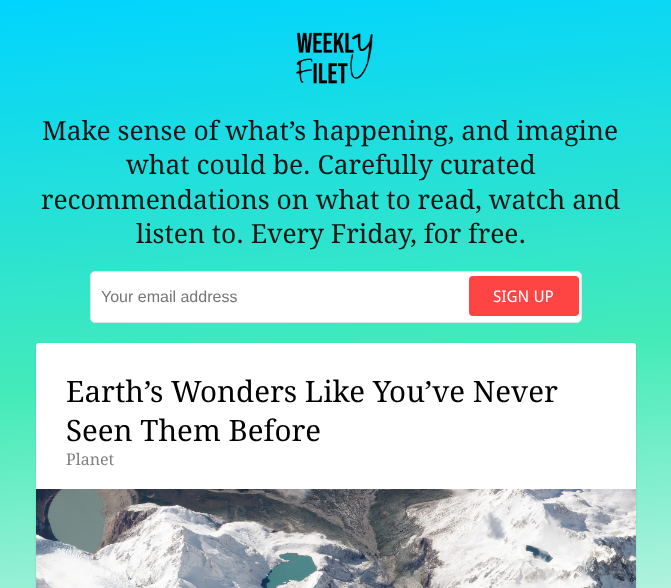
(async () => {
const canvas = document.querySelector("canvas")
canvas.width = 671
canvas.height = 588
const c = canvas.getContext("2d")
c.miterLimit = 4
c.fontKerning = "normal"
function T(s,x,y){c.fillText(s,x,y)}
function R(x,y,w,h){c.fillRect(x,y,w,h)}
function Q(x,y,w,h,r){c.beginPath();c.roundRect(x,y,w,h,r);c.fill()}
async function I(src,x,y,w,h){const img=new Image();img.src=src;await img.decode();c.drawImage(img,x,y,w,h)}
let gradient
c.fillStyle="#fff"
R(0,0,671,588)
gradient = c.createLinearGradient(276,-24,395,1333)
gradient.addColorStop(0,"#00d4ff")
gradient.addColorStop(.29,"#44ebb8")
gradient.addColorStop(.59,"#f6f6f6")
c.fillStyle = gradient
R(0,0,671,588)
await I("1.png",296,32,77,52)
c.font="26.4px Droid Serif"
c.fillStyle="#141414"
T("Make sense of what’s happening, and imagine",42,140)
T("what could be. Carefully curated",126,174)
T("recommendations on what to read, watch and",41,209)
T("listen to. Every Friday, for free.",136,243)
c.fillStyle="#fff"
c.beginPath()
c.roundRect(90.5,271.5,491,51,4.5)
c.fill()
c.strokeStyle="#e3e3e3"
c.stroke()
c.font="16px Liberation Sans"
c.fillStyle="#757575"
T("Your email address",101,302)
c.fillStyle="#f44"
Q(469,276,110,40,4)
c.font="16px Droid Sans"
c.fillStyle="#fff"
T("SIGN UP",493,302)
c.fillStyle="#0000001a"
c.filter="blur(1px)"
c.beginPath()
c.roundRect(36,344,600,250,3)
c.fill()
c.filter="none"
c.fillStyle="#fff"
Q(36,343,600,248,3)
c.font="29.5px Droid Serif"
c.fillStyle="#000"
T("Earth’s Wonders Like You’ve Never",66,402)
T("Seen Them Before",66,441)
c.font="16px Droid Serif"
c.fillStyle="#808080"
T("Planet",66,465)
await I("2.png",36,489,600,99)
})()
